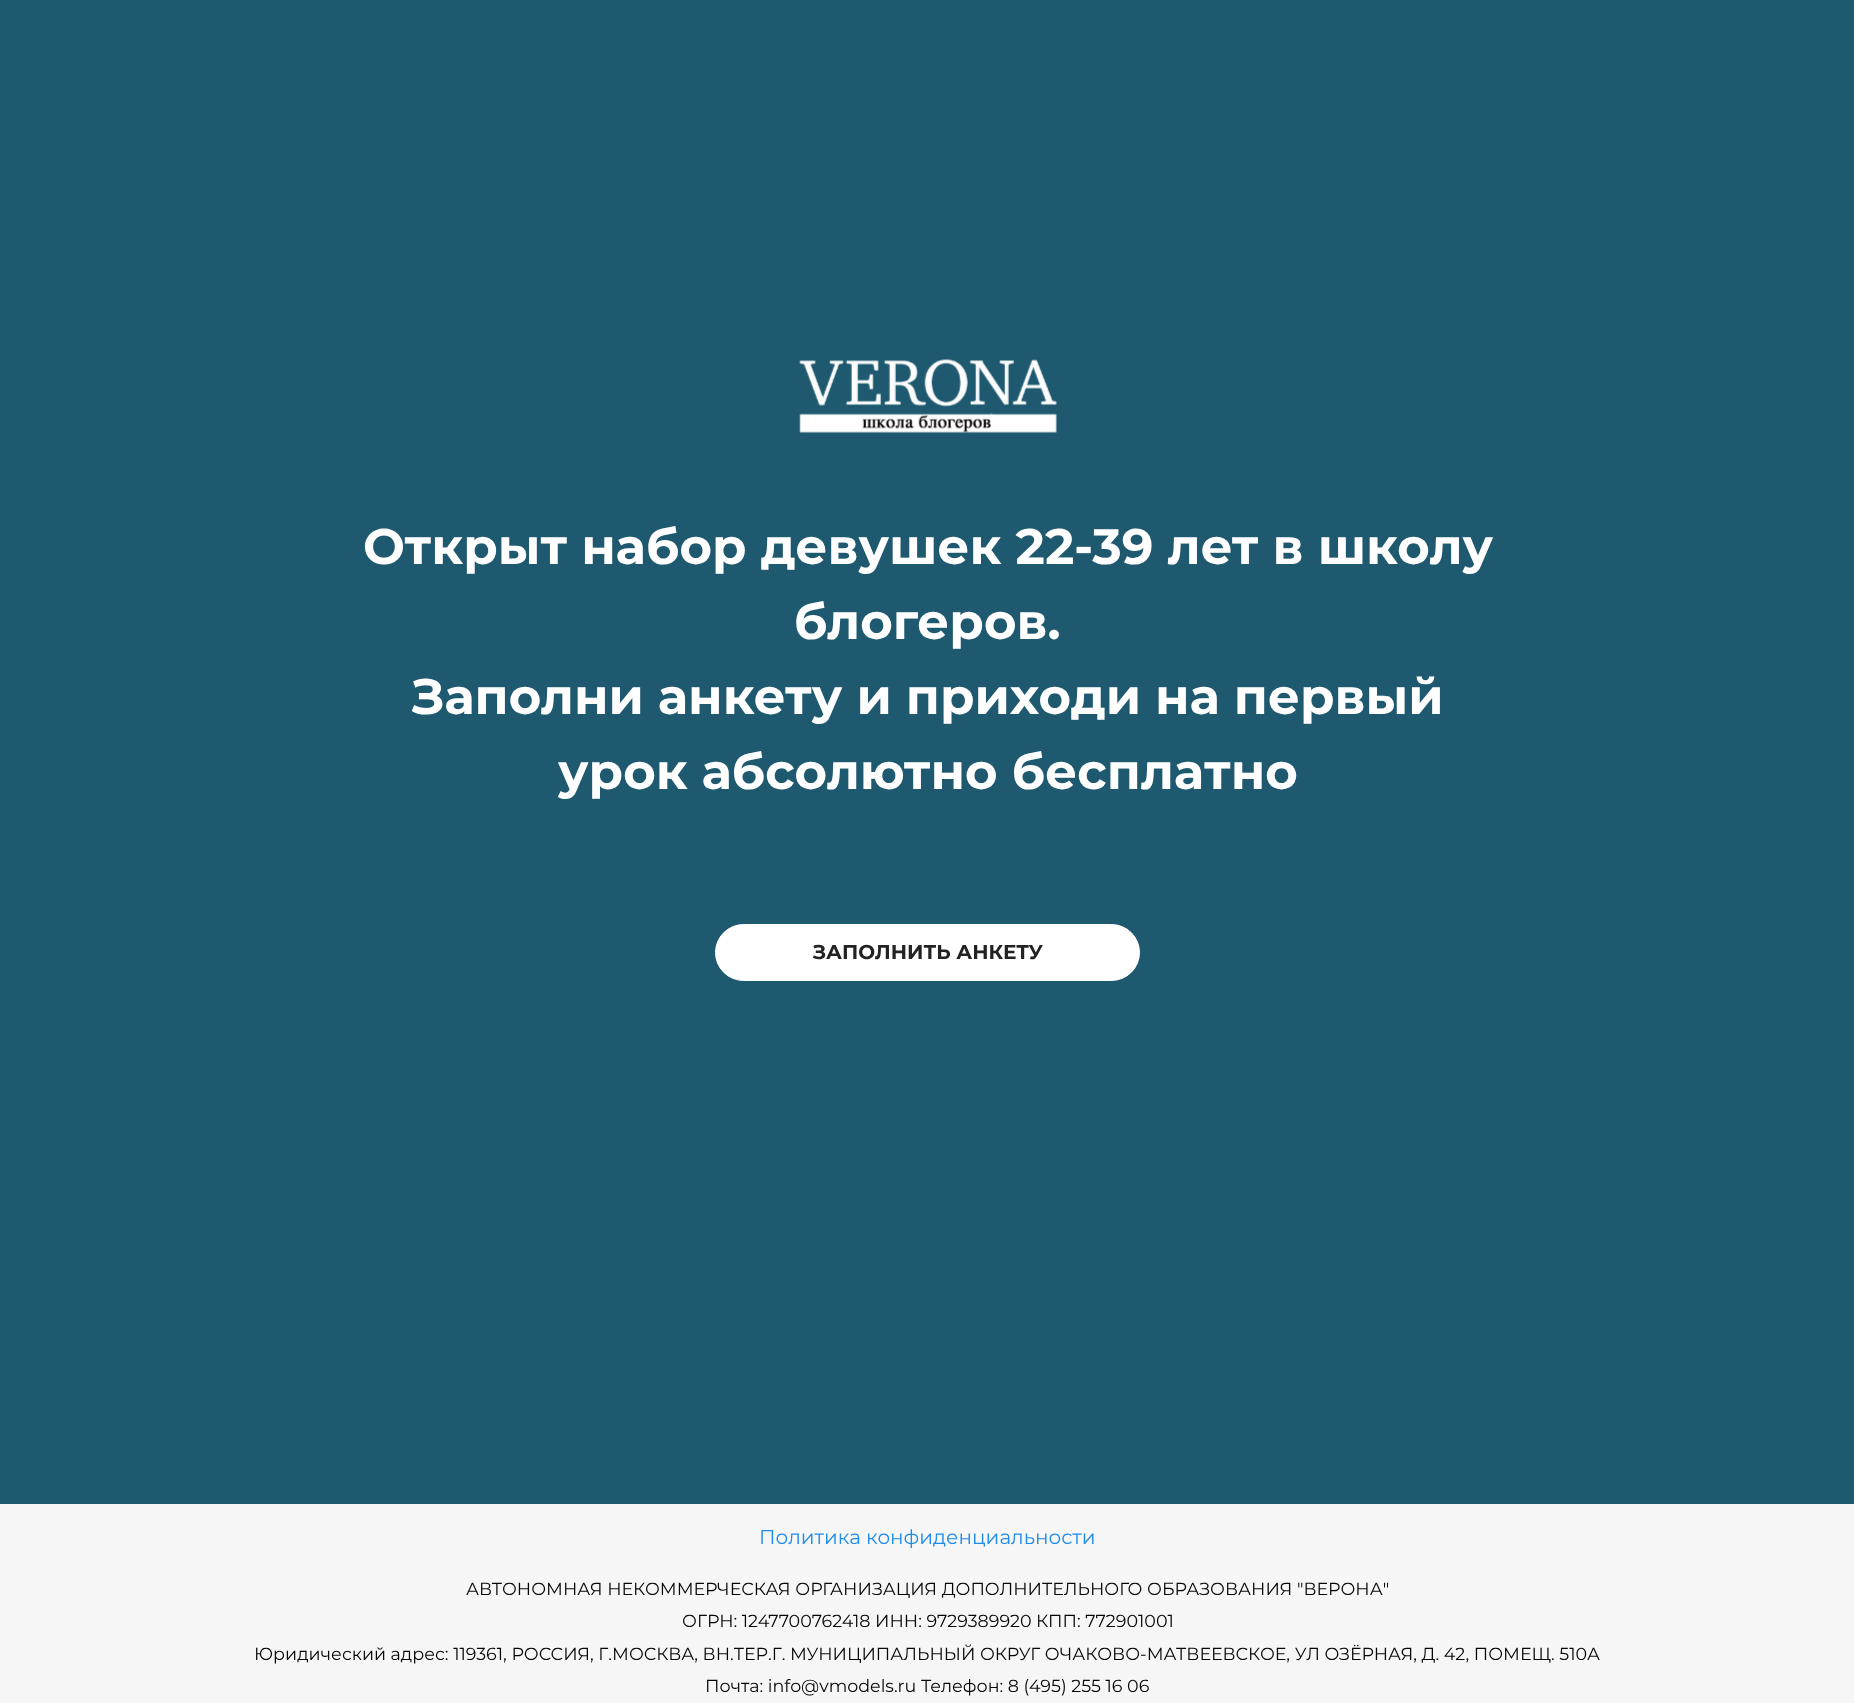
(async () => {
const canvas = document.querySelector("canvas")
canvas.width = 1854
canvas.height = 1703
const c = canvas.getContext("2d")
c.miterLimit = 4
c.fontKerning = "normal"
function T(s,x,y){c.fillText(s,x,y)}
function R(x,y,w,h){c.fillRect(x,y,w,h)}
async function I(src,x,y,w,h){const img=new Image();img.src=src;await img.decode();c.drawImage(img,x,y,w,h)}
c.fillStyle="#1f596f"
R(0,0,1854,1703)
await I("1.png",799,359,258,74)
c.font="bold 49.8px Montserrat"
c.fillStyle="#fff"
T("Открыт набор девушек 22-39 лет в школу",363,564)
T("блогеров.",794,639)
T("Заполни анкету и приходи на первый",412,714)
T("урок абсолютно бесплатно",558,789)
c.beginPath()
c.roundRect(715.5,924.5,424,56,28)
c.fill()
c.strokeStyle="#fff"
c.stroke()
c.font="bold 20px Montserrat"
c.fillStyle="#222"
T("ЗАПОЛНИТЬ АНКЕТУ",813,959)
c.fillStyle="#f6f6f6"
R(0,1504,1854,199)
c.font="20px Montserrat"
c.fillStyle="#1f8ceb"
T("Политика конфиденциальности",759,1544)
c.font="17.5px Montserrat"
c.fillStyle="#060607"
T("АВТОНОМНАЯ НЕКОММЕРЧЕСКАЯ ОРГАНИЗАЦИЯ ДОПОЛНИТЕЛЬНОГО ОБРАЗОВАНИЯ \"ВЕРОНА\"",466,1595)
T("ОГРН: 1247700762418 ИНН: 9729389920 КПП: 772901001",682,1627)
T("Юридический адрес: 119361, РОССИЯ, Г.МОСКВА, ВН.ТЕР.Г. МУНИЦИПАЛЬНЫЙ ОКРУГ ОЧАКОВО-МАТВЕЕВСКОЕ, УЛ ОЗЁРНАЯ, Д. 42, ПОМЕЩ. 510А",254,1660)
T("Почта: info@vmodels.ru Телефон: 8 (495) 255 16 06",705,1692)
})()
